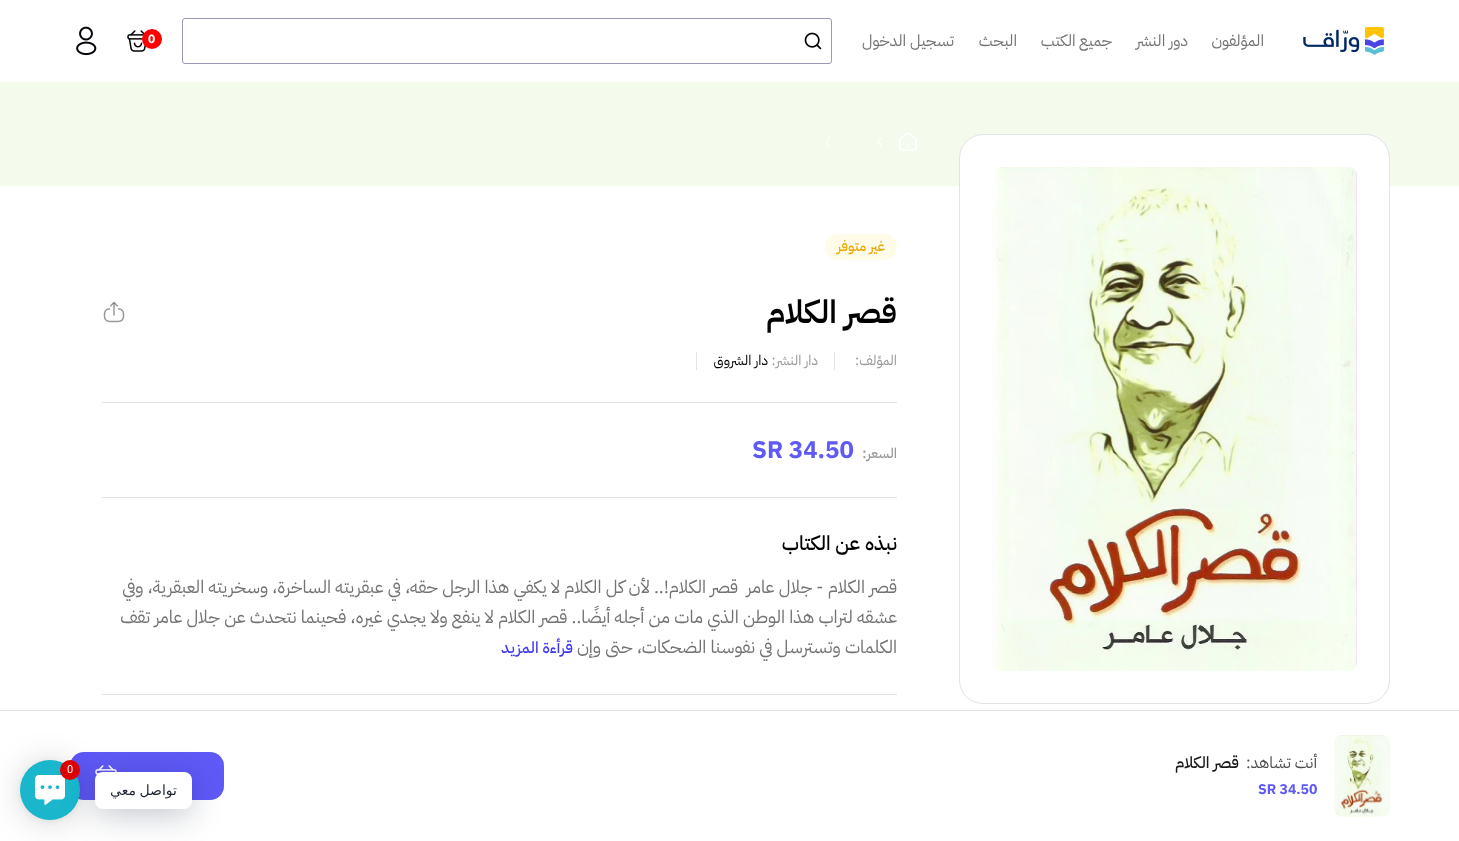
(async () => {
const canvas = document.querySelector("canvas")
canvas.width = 1459
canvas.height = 841
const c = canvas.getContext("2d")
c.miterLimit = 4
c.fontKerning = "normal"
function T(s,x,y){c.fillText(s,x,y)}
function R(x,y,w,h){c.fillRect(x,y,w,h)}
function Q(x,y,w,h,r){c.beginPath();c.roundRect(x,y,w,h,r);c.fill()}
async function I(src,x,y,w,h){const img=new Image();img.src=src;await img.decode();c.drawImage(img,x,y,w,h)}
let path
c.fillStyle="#fff"
R(0,0,1459,841)
await I("1.png",1303,27,81,28)
c.direction="rtl"
c.font="16px IBM Plex Sans Arabic"
c.fillStyle="#737373"
T("المؤلفون",1264,46)
T("دور النشر",1188,46)
T("جميع الكتب",1112,46)
T("البحث",1017,46)
T("تسجيل الدخول",954,46)
c.beginPath()
c.roundRect(182.5,18.5,649,45,2.5)
c.strokeStyle="#9998b5"
c.stroke()
await I("2.png",804,32,18,18)
await I("3.png",127,30,19,22)
c.fillStyle="#f00"
c.beginPath()
c.arc(152,39,10,0,7)
c.fill()
c.direction="ltr"
c.font="bold 12px IBM Plex Sans Arabic"
c.fillStyle="#fff"
T("0",148,43)
await I("4.png",76,26,21,30)
c.fillStyle="#f4fbec"
R(0,82,1459,104)
await I("5.png",899,133,18,18)
path = new Path2D("M881.5 146c-4.5-4.5-4.5-3.5 0-8m-52 8c-4.5-4.5-4.5-3.5 0-8")
c.strokeStyle="#fff"
c.lineWidth=1.2
c.lineCap="round"
c.lineJoin="round"
c.stroke(path)
c.fillStyle="#fff"
c.beginPath()
c.roundRect(959.5,134.5,430,569,23.5)
c.fill()
c.strokeStyle="#e2e2e9"
c.lineWidth=1
c.lineJoin="miter"
c.stroke()
await I("6.png",992,167,365,504)
c.fillStyle="#fefbe8"
Q(825,234,72,26,13)
c.direction="rtl"
c.font="500 14px IBM Plex Sans Arabic"
c.fillStyle="#eaaa08"
T("غير متوفر",885,251)
c.font="600 32px IBM Plex Sans Arabic"
c.fillStyle="#000"
T("قصر الكلام",897,323)
await I("7.png",103,301,22,22)
c.fillStyle="#e2e2e9"
R(834,352,1,18)
c.font="14px IBM Plex Sans Arabic"
c.fillStyle="#999"
T("المؤلف:",897,365)
c.fillStyle="#e2e2e9"
R(696,352,1,18)
c.fillStyle="#999"
T("دار النشر:",818,365)
c.fillStyle="#000"
T("دار الشروق",768,365)
c.fillStyle="#e2e2e9"
R(102,402,795,1)
c.font="500 14px IBM Plex Sans Arabic"
c.fillStyle="#999"
T("السعر:",897,458)
c.direction="ltr"
c.font="bold 24px IBM Plex Sans Arabic"
c.fillStyle="#5f59f7"
T("SR 34.50",752,458)
c.fillStyle="#e2e2e9"
R(102,497,795,1)
c.direction="rtl"
c.font="500 20px IBM Plex Sans Arabic"
c.fillStyle="#000"
T("نبذه عن الكتاب",897,550)
c.font="18px IBM Plex Sans Arabic"
c.fillStyle="#737373"
T("قصر الكلام - جلال عامر  قصر الكلام!.. لأن كل الكلام لا يكفي هذا الرجل حقه، في عبقريته الساخرة، وسخريته العبقرية، وفي",897,593)
T("عشقه لتراب هذا الوطن الذي مات من أجله أيضًا.. قصر الكلام لا ينفع ولا يجدي غيره، فحينما نتحدث عن جلال عامر تقف",897,623)
T("الكلمات وتسترسل في نفوسنا الضحكات، حتى وإن",897,653)
c.font="500 16px IBM Plex Sans Arabic"
c.fillStyle="#403aee"
T("قرأءة المزيد",573,653)
c.fillStyle="#e2e2e9"
R(102,694,795,1)
R(0,710,1459,1)
await I("8.png",1334,735,56,82)
c.font="16px IBM Plex Sans Arabic"
c.fillStyle="#4d4d4d"
T("أنت تشاهد:",1317,768)
c.font="500 16px IBM Plex Sans Arabic"
c.fillStyle="#1a1a1a"
T("قصر الكلام",1239,768)
c.direction="ltr"
c.font="bold 14px IBM Plex Sans Arabic"
c.fillStyle="#5f59f7"
T("SR 34.50",1258,794)
Q(70,752,154,48,14)
await I("9.png",95,765,22,11)
c.fillStyle="#00000029"
c.filter="blur(16px)"
c.beginPath()
c.roundRect(20,762,60,60,30)
c.fill()
c.filter="none"
c.fillStyle="#0000000f"
c.filter="blur(3px)"
c.beginPath()
c.roundRect(20,761,60,60,30)
c.fill()
c.filter="none"
c.fillStyle="#1ab7cc"
c.beginPath()
c.arc(50,790,30,0,7)
c.fill()
c.fillStyle="#00122e3d"
c.filter="blur(16px)"
c.beginPath()
c.roundRect(95,778,97,37,8)
c.fill()
c.filter="none"
await I("10.png",35,775,30,30)
c.fillStyle="#d00"
c.beginPath()
c.arc(70,770,10,0,7)
c.fill()
c.font="11px Roboto"
c.fillStyle="#fff"
T("0",67,773)
Q(95,772,97,37,8)
c.wordSpacing="-1px"
c.direction="rtl"
c.font="14px DejaVu Sans"
c.fillStyle="#1e2433"
T("تواصل معي",177,795)
})()
